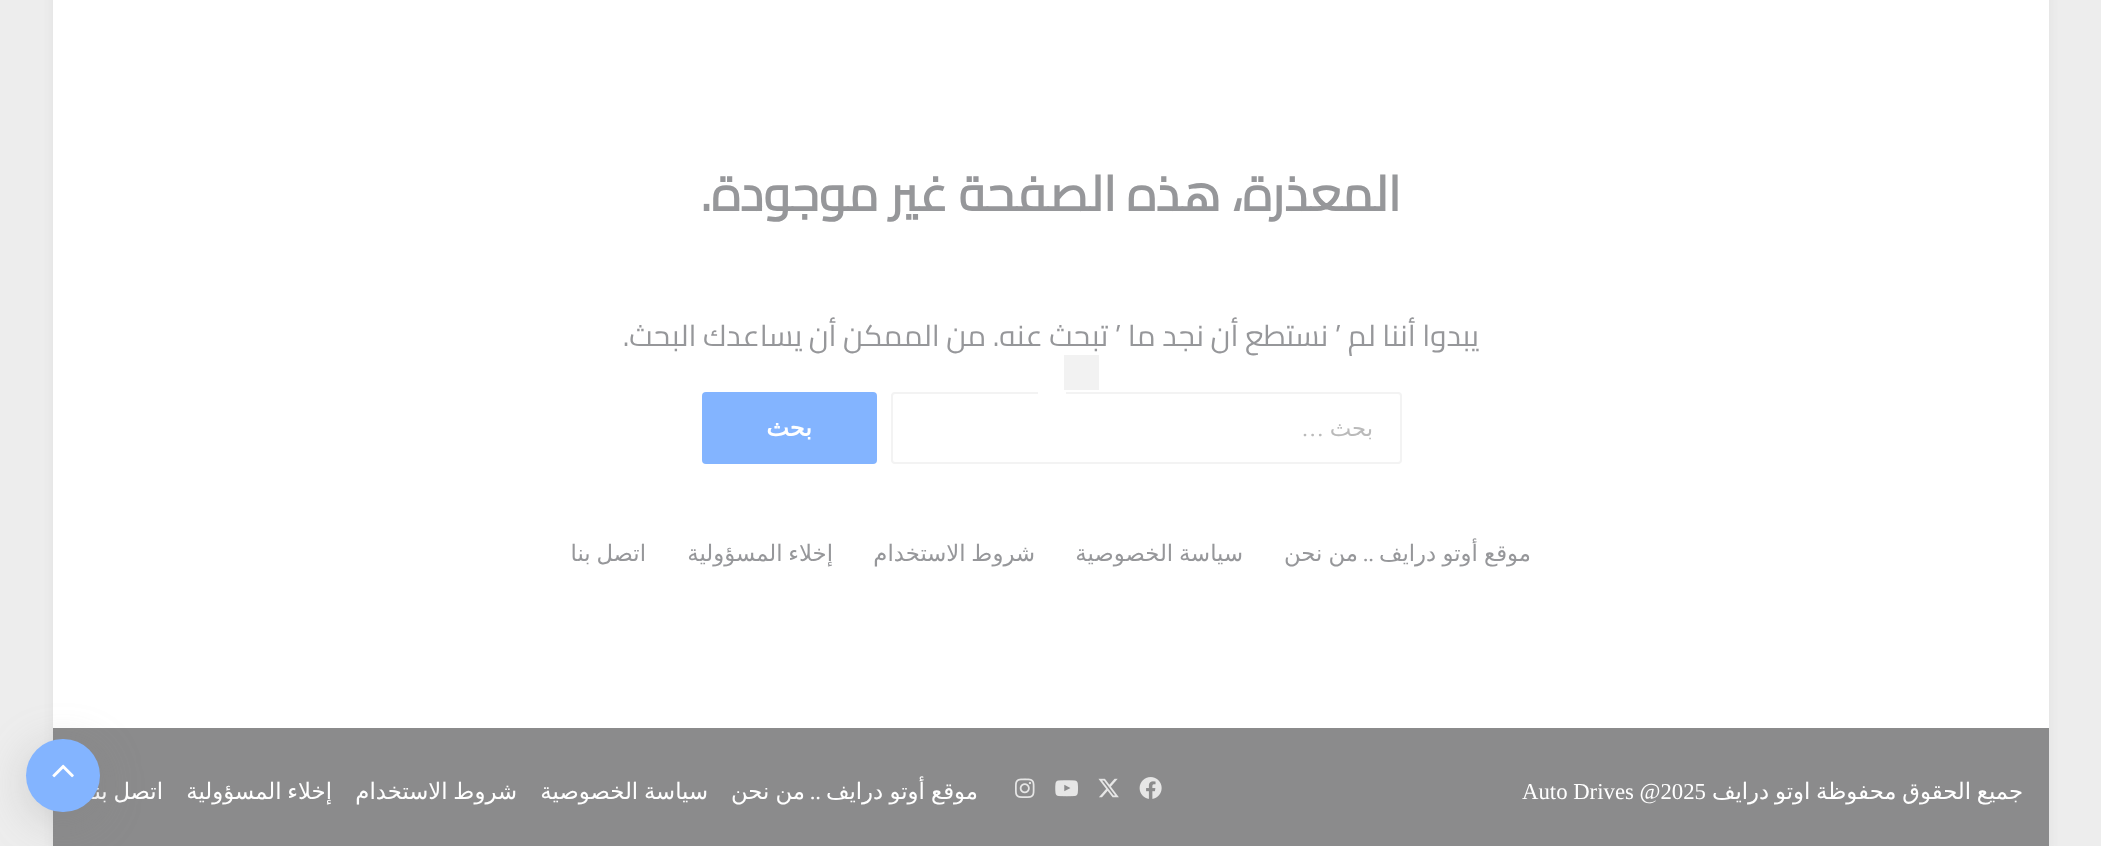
(async () => {
const canvas = document.querySelector("canvas")
canvas.width = 2101
canvas.height = 846
const c = canvas.getContext("2d")
c.miterLimit = 4
c.fontKerning = "normal"
function T(s,x,y){c.fillText(s,x,y)}
function R(x,y,w,h){c.fillRect(x,y,w,h)}
function Q(x,y,w,h,r){c.beginPath();c.roundRect(x,y,w,h,r);c.fill()}
async function I(src,x,y,w,h){const img=new Image();img.src=src;await img.decode();c.drawImage(img,x,y,w,h)}
c.fillStyle="#ededed"
R(0,0,2101,846)
c.fillStyle="#d5d5d580"
c.filter="blur(6px)"
c.beginPath()
c.rect(53,-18,1996,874)
c.fill()
c.filter="none"
c.fillStyle="#fff"
R(53,0,1996,728)
c.direction="rtl"
c.font="bold 49px Cairo"
c.fillStyle="#96979a"
T("المعذرة، هذه الصفحة غير موجودة.",1401,211)
c.font="29.75px Cairo"
T("يبدوا أننا لم ’ نستطع أن نجد ما ’ تبحث عنه. من الممكن أن يساعدك البحث.",1479,346)
c.beginPath()
c.roundRect(892,393,509,70,3)
c.strokeStyle="#f3f3f3"
c.lineWidth=2
c.stroke()
c.font="22.75px DejaVu Sans"
c.fillStyle="#bababa"
T("بحث",1373,436)
c.font="22.75px Liberation Serif"
T("…",1324,436)
c.fillStyle="#83b4ff"
Q(702,392,175,72,4)
c.font="bold 24px DejaVu Sans"
c.fillStyle="#fff"
T("بحث",812,436)
c.wordSpacing="-1px"
c.font="22.75px DejaVu Sans"
c.fillStyle="#96979a"
T("موقع أوتو درايف",1531,561)
c.wordSpacing="0px"
c.font="22.75px Liberation Serif"
T("..",1374,561)
c.wordSpacing="-1px"
c.font="22.75px DejaVu Sans"
T("من نحن",1358,561)
c.wordSpacing="-1.5px"
T("سياسة الخصوصية",1243,561)
T("شروط الاستخدام",1035,561)
T("إخلاء المسؤولية",833,561)
T("اتصل بنا",646,561)
c.fillStyle="#8b8b8c"
R(53,728,1996,118)
c.fillStyle="#fff"
T("جميع الحقوق محفوظة اوتو درايف",2023,799)
c.wordSpacing="0px"
c.direction="ltr"
c.font="22.75px Liberation Serif"
T("Auto Drives @2025",1522,799)
await I("1.png",1139,777,23,22)
await I("2.png",1098,778,21,20)
await I("3.png",1055,780,23,17)
await I("4.png",1015,778,20,20)
c.wordSpacing="-1px"
c.direction="rtl"
c.font="22.75px DejaVu Sans"
T("موقع أوتو درايف",978,799)
c.wordSpacing="0px"
c.font="22.75px Liberation Serif"
T("..",821,799)
c.wordSpacing="-1px"
c.font="22.75px DejaVu Sans"
T("من نحن",805,799)
c.wordSpacing="-1.5px"
T("سياسة الخصوصية",708,799)
T("شروط الاستخدام",517,799)
T("إخلاء المسؤولية",332,799)
T("اتصل بنا",163,799)
c.fillStyle="#8080804d"
c.filter="blur(22px)"
c.beginPath()
c.roundRect(26,747,74,74,37)
c.fill()
c.filter="none"
c.fillStyle="#83b4ff"
Q(26,739,74,73,36.5)
await I("5.png",52,764,22,14)
c.fillStyle="#fff"
R(1038,392,28,2)
c.fillStyle="#f2f2f2"
R(1064,355,35,35)
})()
